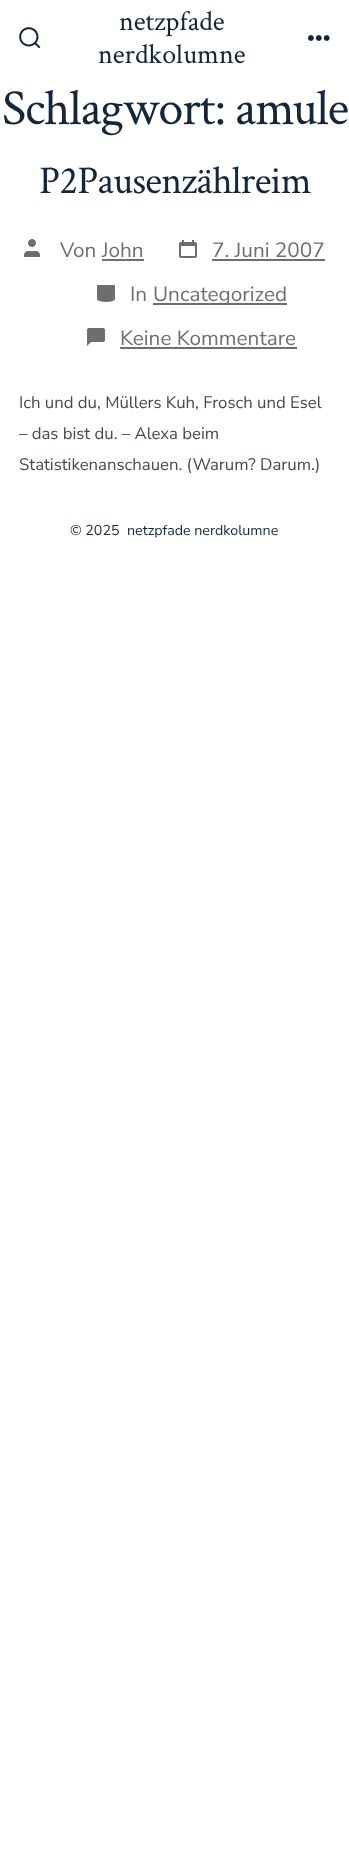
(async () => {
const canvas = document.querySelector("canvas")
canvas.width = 349
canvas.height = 1861
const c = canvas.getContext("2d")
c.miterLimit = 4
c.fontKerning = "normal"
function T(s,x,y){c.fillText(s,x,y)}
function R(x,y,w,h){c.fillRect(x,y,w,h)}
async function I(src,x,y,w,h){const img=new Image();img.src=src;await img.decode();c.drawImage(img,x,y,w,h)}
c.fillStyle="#fff"
R(0,0,349,1861)
await I("1.png",19,27,22,21)
c.font="28px Crimson Text"
c.fillStyle="#13263a"
T("netzpfade",119,30)
T("nerdkolumne",98,63)
await I("2.png",308,35,22,6)
c.letterSpacing="-1px"
c.font="50.5px Crimson Text"
T("Schlagwort: amule",2,124)
c.letterSpacing="-0.75px"
c.font="39.5px Crimson Text"
T("P2Pausenzählreim",39,193)
await I("3.png",24,239,16,18)
c.letterSpacing="0px"
c.font="20.75px Nunito Sans"
c.fillStyle="#6e6e6e"
T("Von John",60,257)
R(102,259,42,2)
await I("4.png",179,240,18,18)
T("7. Juni 2007",212,257)
R(212,259,113,2)
await I("5.png",97,285,18,17)
T("In",130,301)
R(153,303,134,2)
T("Uncategorized",153,301)
await I("6.png",87,328,18,18)
T("Keine Kommentare",120,345)
R(120,347,177,2)
c.font="16.75px Nunito Sans"
c.fillStyle="#434a56"
T("Ich und du, Müllers Kuh, Frosch und Esel",19,408)
T("– das bist du. – Alexa beim",19,439)
T("Statistikenanschauen. (Warum? Darum.)",19,470)
c.font="14.25px Nunito Sans"
c.fillStyle="#13263a"
T("© 2025",70,535)
T("netzpfade nerdkolumne",127,535)
})()
